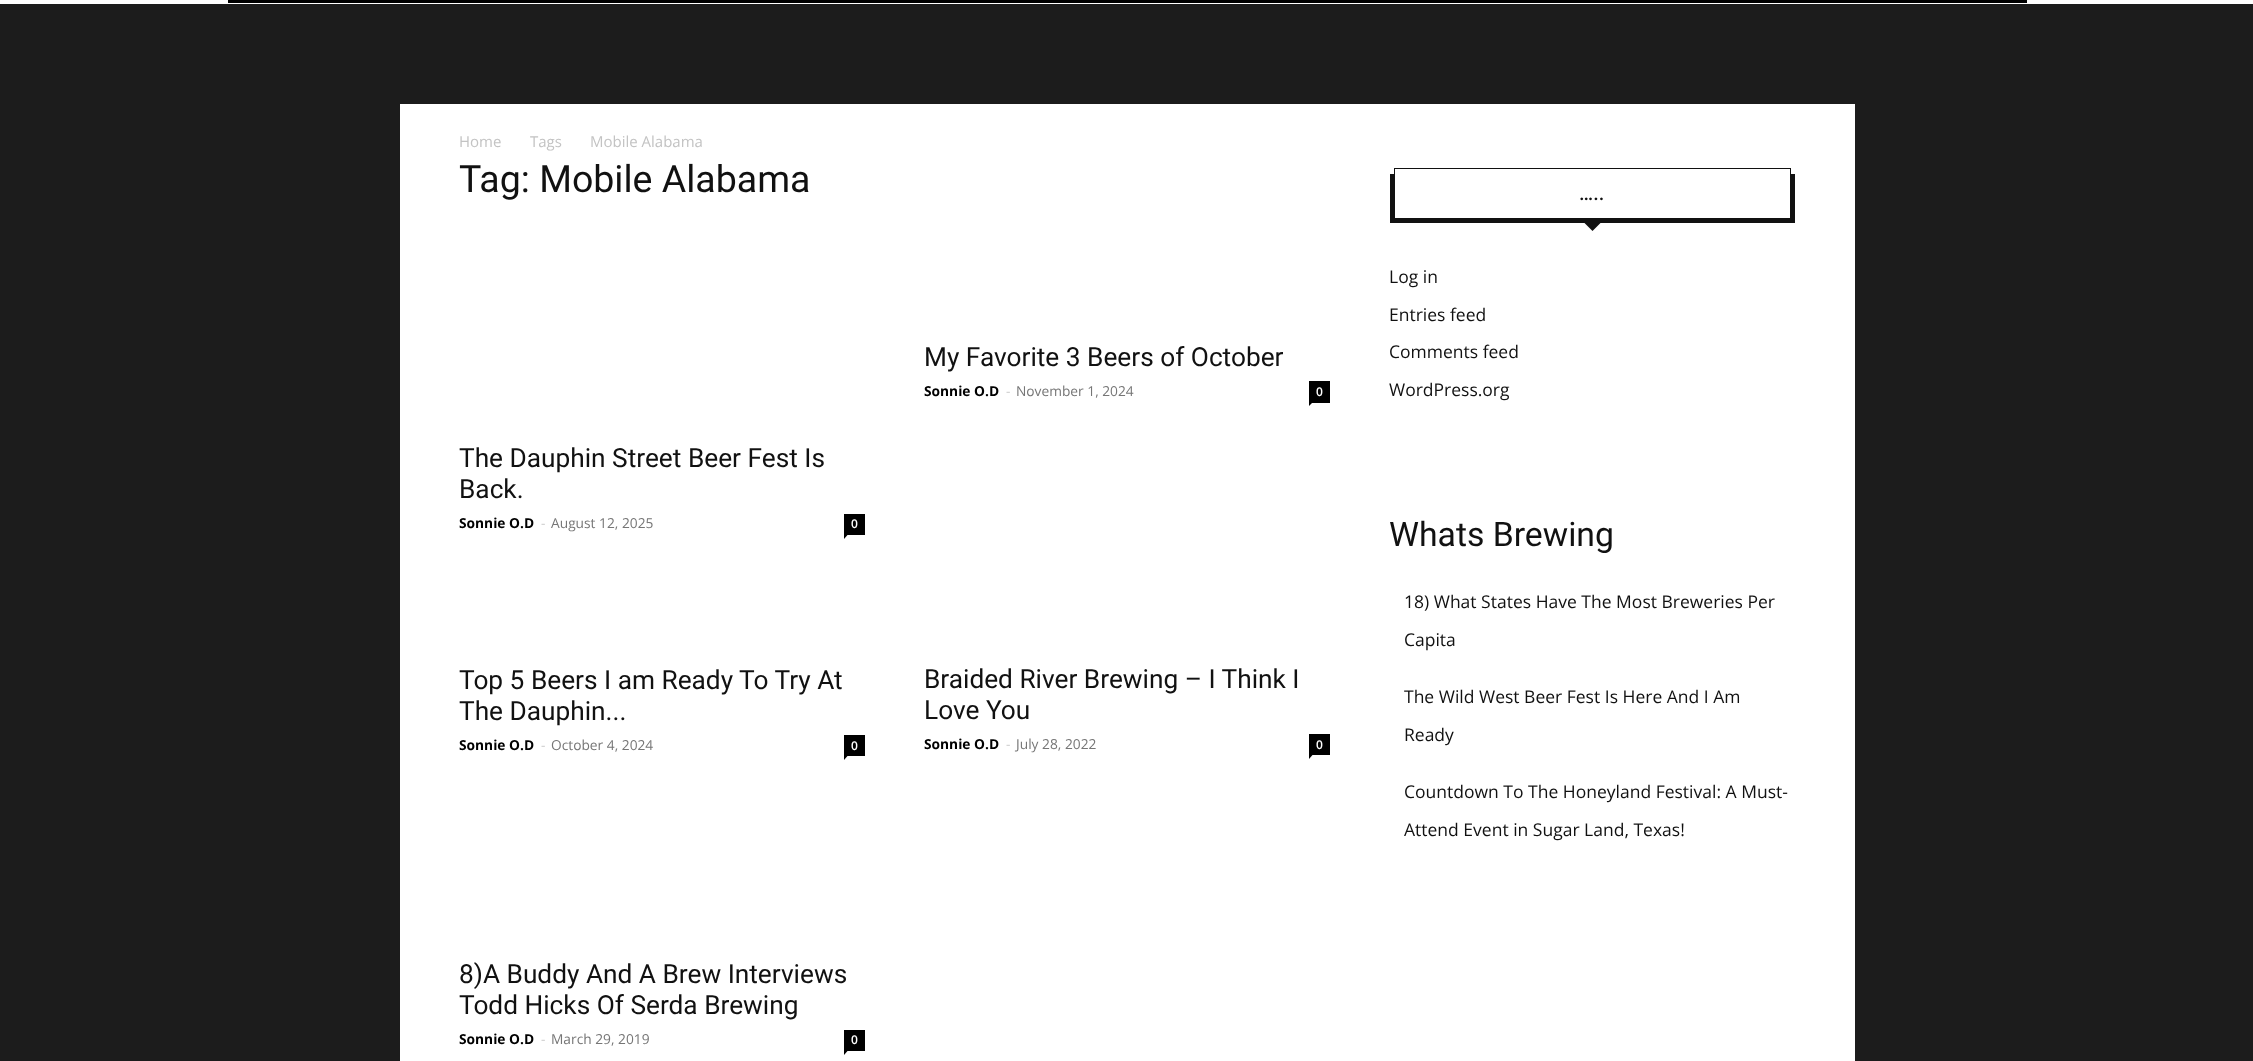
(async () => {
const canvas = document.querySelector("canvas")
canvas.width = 2253
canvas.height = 1061
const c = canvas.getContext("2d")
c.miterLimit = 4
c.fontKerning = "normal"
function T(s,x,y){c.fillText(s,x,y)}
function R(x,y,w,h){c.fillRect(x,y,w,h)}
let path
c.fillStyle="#1c1c1c"
R(0,0,2253,1061)
c.fillStyle="#fff"
R(0,0,2253,4)
c.save()
c.beginPath()
c.rect(228,0,1800,3)
c.clip()
c.fillStyle="#000"
path = new Path2D("M228 272v-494l1799 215v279z")
c.fill(path)
c.restore()
R(400,104,1455,957)
c.font="15px Open Sans"
c.fillStyle="#c3c3c3"
T("Home",459,147)
T("Tags",530,147)
T("Mobile Alabama",590,147)
c.font="37.5px Roboto"
c.fillStyle="#111"
T("Tag: Mobile Alabama",459,192)
c.font="26.25px Roboto"
T("My Favorite 3 Beers of October",924,366)
c.font="bold 13.75px Open Sans"
c.fillStyle="#000"
T("Sonnie O.D",924,396)
c.font="13.75px Open Sans"
c.fillStyle="#ccc"
T("-",1006,396)
c.fillStyle="#767676"
T("November 1, 2024",1016,396)
c.fillStyle="#000"
R(1309,381,21,22)
c.font="600 12px Open Sans"
c.fillStyle="#fff"
T("0",1316,396)
c.fillStyle="#000"
path = new Path2D("M1309 402.5h3.5l-3.5 3.5z")
c.fill(path)
c.font="26.25px Roboto"
c.fillStyle="#111"
T("The Dauphin Street Beer Fest Is",459,467)
T("Back.",459,498)
c.font="bold 13.75px Open Sans"
c.fillStyle="#000"
T("Sonnie O.D",459,528)
c.font="13.75px Open Sans"
c.fillStyle="#ccc"
T("-",541,528)
c.fillStyle="#767676"
T("August 12, 2025",551,528)
c.fillStyle="#000"
R(844,514,21,21)
c.font="600 12px Open Sans"
c.fillStyle="#fff"
T("0",851,528)
c.fillStyle="#000"
path = new Path2D("M844 535h3.5l-3.5 4z")
c.fill(path)
c.font="26.25px Roboto"
c.fillStyle="#111"
T("Top 5 Beers I am Ready To Try At",459,689)
T("The Dauphin...",459,720)
c.font="bold 13.75px Open Sans"
c.fillStyle="#000"
T("Sonnie O.D",459,750)
c.font="13.75px Open Sans"
c.fillStyle="#ccc"
T("-",541,750)
c.fillStyle="#767676"
T("October 4, 2024",551,750)
c.fillStyle="#000"
R(844,735,21,21)
c.font="600 12px Open Sans"
c.fillStyle="#fff"
T("0",851,750)
c.fillStyle="#000"
path = new Path2D("M844 756h3.5l-3.5 4z")
c.fill(path)
c.font="26.25px Roboto"
c.fillStyle="#111"
T("Braided River Brewing – I Think I",924,688)
T("Love You",924,719)
c.font="bold 13.75px Open Sans"
c.fillStyle="#000"
T("Sonnie O.D",924,749)
c.font="13.75px Open Sans"
c.fillStyle="#ccc"
T("-",1006,749)
c.fillStyle="#767676"
T("July 28, 2022",1016,749)
c.fillStyle="#000"
R(1309,734,21,21)
c.font="600 12px Open Sans"
c.fillStyle="#fff"
T("0",1316,749)
c.fillStyle="#000"
path = new Path2D("M1309 755h3.5l-3.5 4z")
c.fill(path)
c.font="26.25px Roboto"
c.fillStyle="#111"
T("8)A Buddy And A Brew Interviews",459,983)
T("Todd Hicks Of Serda Brewing",459,1014)
c.font="bold 13.75px Open Sans"
c.fillStyle="#000"
T("Sonnie O.D",459,1044)
c.font="13.75px Open Sans"
c.fillStyle="#ccc"
T("-",541,1044)
c.fillStyle="#767676"
T("March 29, 2019",551,1044)
c.fillStyle="#000"
R(844,1030,21,21)
c.font="600 12px Open Sans"
c.fillStyle="#fff"
T("0",851,1044)
c.fillStyle="#000"
path = new Path2D("M844 1051h3.5l-3.5 4z")
c.fill(path)
c.fillStyle="#111"
R(1390,174,405,49)
c.fillStyle="#fff"
R(1395,174,395,44)
c.strokeStyle="#111"
c.strokeRect(1394.5,168.5,396,50)
c.font="500 20px Roboto"
c.fillStyle="#111"
T("…..",1579,200)
path = new Path2D("M1582.5 221h20l-10 10z")
c.fill(path)
c.font="17.5px Open Sans"
T("Log in",1389,283)
T("Entries feed",1389,321)
T("Comments feed",1389,358)
T("WordPress.org",1389,396)
c.font="33.75px Roboto"
T("Whats Brewing",1389,546)
c.font="17.5px Open Sans"
T("18) What States Have The Most Breweries Per",1404,608)
T("Capita",1404,646)
T("The Wild West Beer Fest Is Here And I Am",1404,703)
T("Ready",1404,741)
T("Countdown To The Honeyland Festival: A Must-",1404,798)
T("Attend Event in Sugar Land, Texas!",1404,836)
})()
